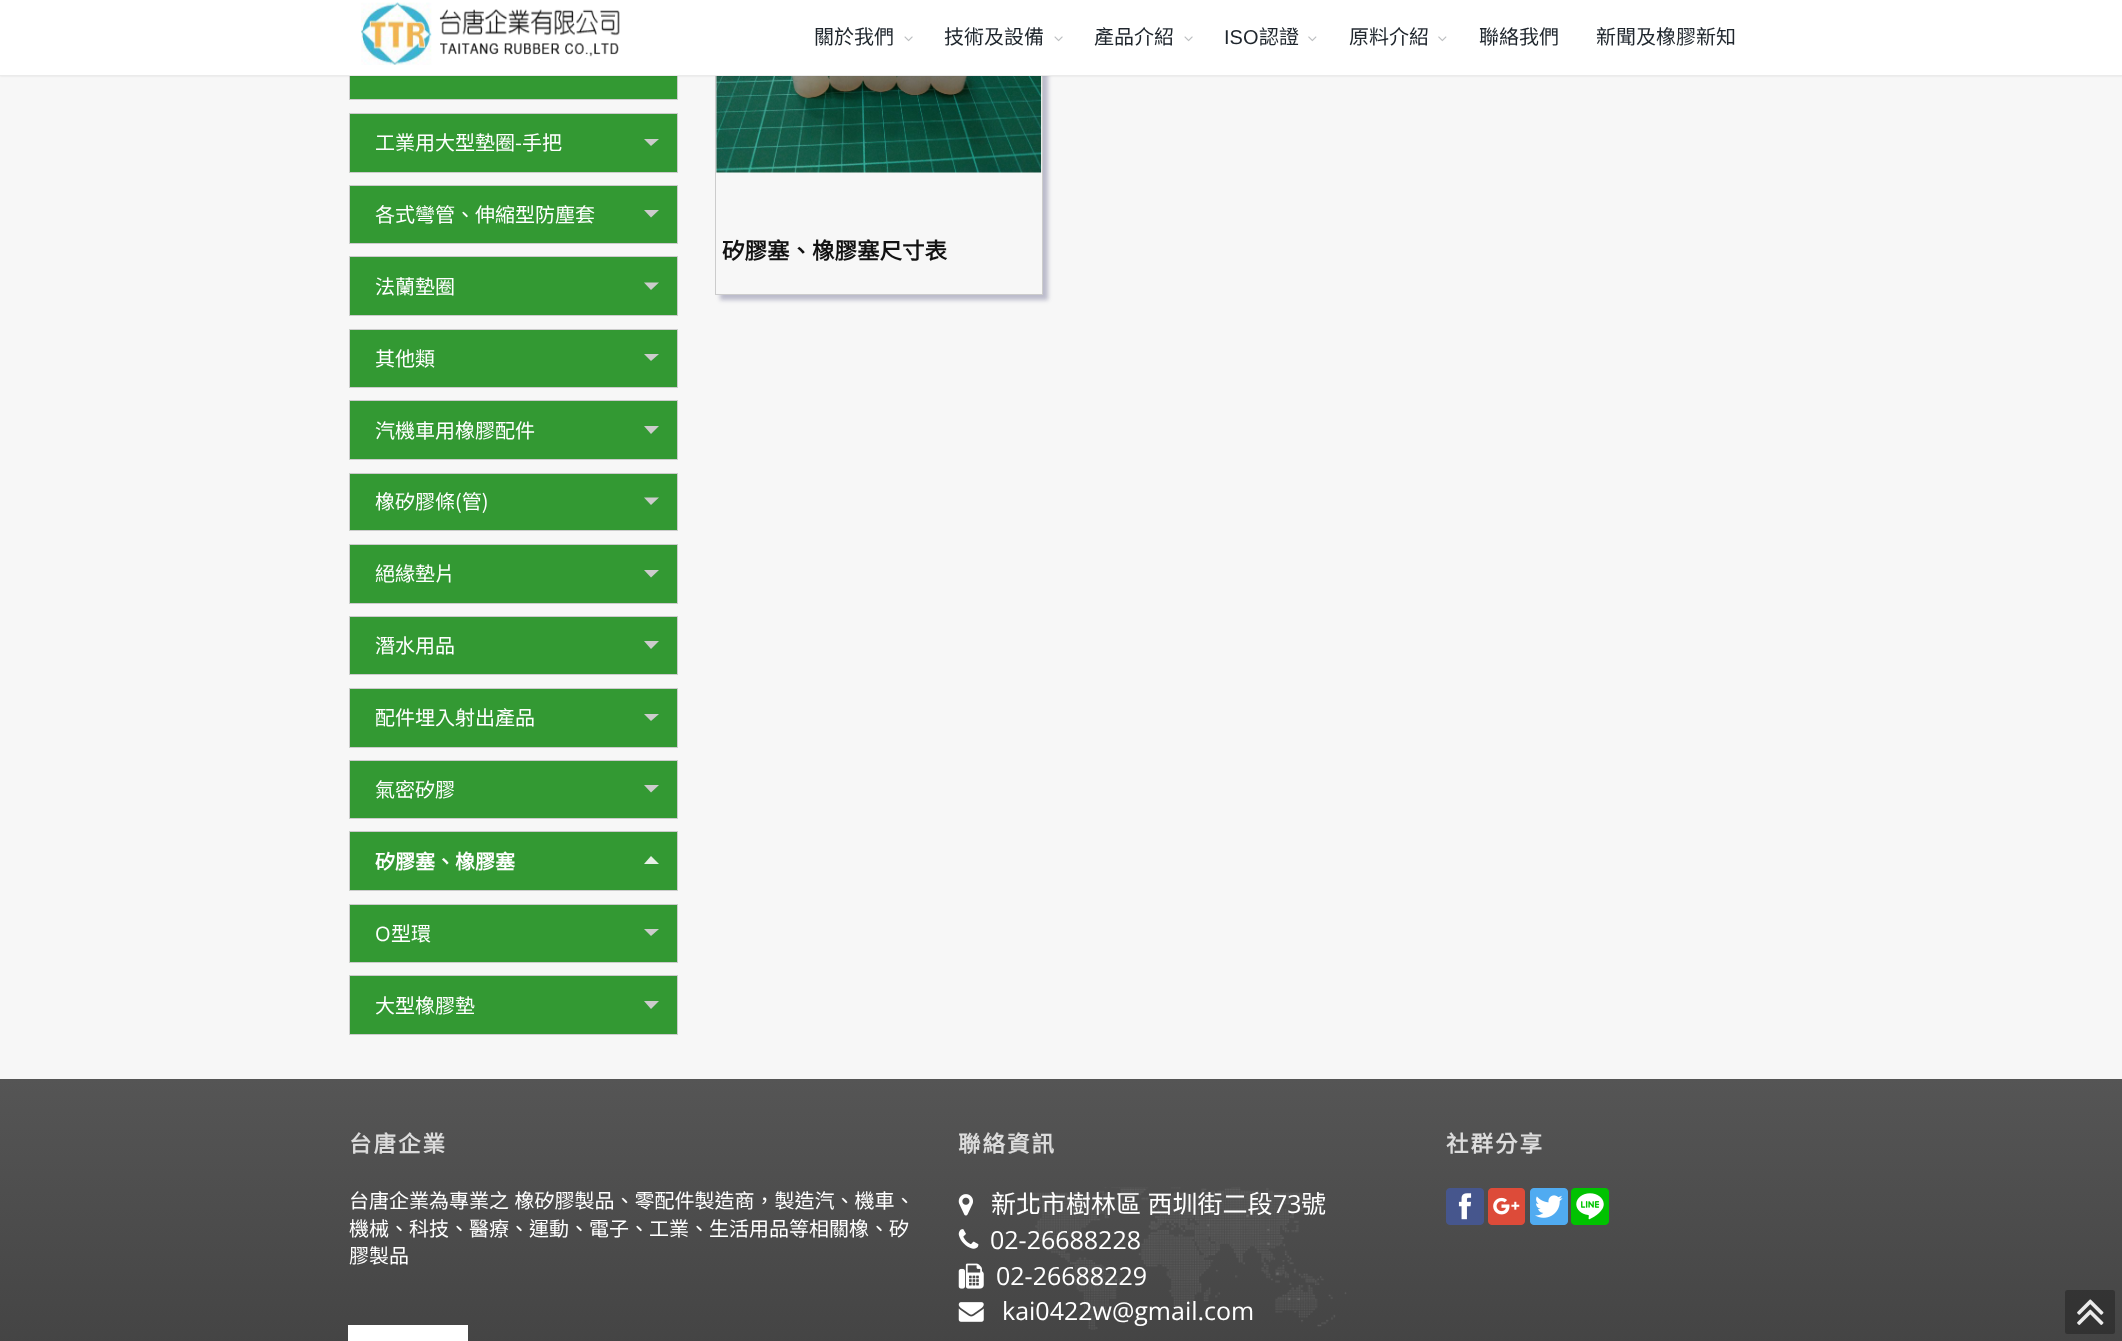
(async () => {
const canvas = document.querySelector("canvas")
canvas.width = 2122
canvas.height = 1341
const c = canvas.getContext("2d")
c.miterLimit = 4
c.fontKerning = "normal"
function T(s,x,y){c.fillText(s,x,y)}
function R(x,y,w,h){c.fillRect(x,y,w,h)}
function Q(x,y,w,h,r){c.beginPath();c.roundRect(x,y,w,h,r);c.fill()}
async function I(src,x,y,w,h){const img=new Image();img.src=src;await img.decode();c.drawImage(img,x,y,w,h)}
let gradient, path
c.fillStyle="#f7f7f7"
R(0,0,2122,1341)
c.fillStyle="#393"
R(350,76,327,23)
c.strokeStyle="#ccc"
c.strokeRect(349.5,41.5,328,58)
c.save()
path = new Path2D("M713 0h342v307h-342zm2-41h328v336h-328z")
c.clip(path,"evenodd")
c.fillStyle="#3333664d"
c.filter="blur(2px)"
c.beginPath()
c.rect(720,-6,328,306)
c.fill()
c.filter="none"
c.restore()
c.strokeRect(715.5,-.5,327,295)
await I("4.png",716,76,326,97)
c.fillStyle="#0000001a"
c.filter="blur(1px)"
c.beginPath()
c.rect(0,0,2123,76)
c.fill()
c.filter="none"
c.fillStyle="#fff"
R(0,0,2122,75)
c.fillStyle="#ebebeb"
R(0,75,2122,1)
await I("1.png",361,2,259,63)
c.font="20px Noto Sans CJK TC"
c.fillStyle="#1f262d"
T("關於我們",814,44)
await I("2.png",904,36,9,6)
T("技術及設備",944,44)
await I("2.png",1054,36,9,6)
T("產品介紹",1094,44)
await I("2.png",1184,36,9,6)
c.font="20px Liberation Sans"
T("ISO",1224,44)
c.font="20px Noto Sans CJK TC"
T("認證",1259,44)
await I("3.png",1308,36,9,6)
T("原料介紹",1349,44)
await I("3.png",1438,36,9,6)
T("聯絡我們",1479,44)
T("新聞及橡膠新知",1596,44)
c.fillStyle="#393"
c.beginPath()
c.rect(349.5,113.5,328,59)
c.fill()
c.stroke()
c.fillStyle="#fff"
T("工業用大型墊圈-手把",375,150)
c.fillStyle="#ccc"
path = new Path2D("M644 139h15l-8 7z")
c.fill(path)
c.fillStyle="#393"
c.beginPath()
c.rect(349.5,185.5,328,58)
c.fill()
c.stroke()
c.fillStyle="#fff"
T("各式彎管、伸縮型防塵套",375,222)
c.fillStyle="#ccc"
path = new Path2D("M644 210h15l-8 7.5z")
c.fill(path)
c.fillStyle="#393"
c.beginPath()
c.rect(349.5,256.5,328,59)
c.fill()
c.stroke()
c.fillStyle="#fff"
T("法蘭墊圈",375,294)
c.fillStyle="#ccc"
path = new Path2D("M644 282.5h15l-8 7.5z")
c.fill(path)
c.fillStyle="#393"
c.beginPath()
c.rect(349.5,329.5,328,58)
c.fill()
c.stroke()
c.fillStyle="#fff"
T("其他類",375,366)
c.fillStyle="#ccc"
path = new Path2D("M644 354h15l-8 7z")
c.fill(path)
c.fillStyle="#393"
c.beginPath()
c.rect(349.5,400.5,328,59)
c.fill()
c.stroke()
c.fillStyle="#fff"
T("汽機車用橡膠配件",375,438)
c.fillStyle="#ccc"
path = new Path2D("M644 426h15l-8 8z")
c.fill(path)
c.fillStyle="#393"
c.beginPath()
c.rect(349.5,473.5,328,57)
c.fill()
c.stroke()
c.fillStyle="#fff"
T("橡矽膠條(管)",375,509)
c.fillStyle="#ccc"
path = new Path2D("M644 497.5h15l-8 7.5z")
c.fill(path)
c.fillStyle="#393"
c.beginPath()
c.rect(349.5,544.5,328,59)
c.fill()
c.stroke()
c.fillStyle="#fff"
T("絕緣墊片",375,581)
c.fillStyle="#ccc"
path = new Path2D("M644 570h15l-8 7.5z")
c.fill(path)
c.fillStyle="#393"
c.beginPath()
c.rect(349.5,616.5,328,58)
c.fill()
c.stroke()
c.fillStyle="#fff"
T("潛水用品",375,653)
c.fillStyle="#ccc"
path = new Path2D("M644 641h15l-8 8z")
c.fill(path)
c.fillStyle="#393"
c.beginPath()
c.rect(349.5,688.5,328,59)
c.fill()
c.stroke()
c.fillStyle="#fff"
T("配件埋入射出產品",375,725)
c.fillStyle="#ccc"
path = new Path2D("M644 714h15l-8 7z")
c.fill(path)
c.fillStyle="#393"
c.beginPath()
c.rect(349.5,760.5,328,58)
c.fill()
c.stroke()
c.fillStyle="#fff"
T("氣密矽膠",375,797)
c.fillStyle="#ccc"
path = new Path2D("M644 785h15l-8 7.5z")
c.fill(path)
c.fillStyle="#393"
c.beginPath()
c.rect(349.5,831.5,328,59)
c.fill()
c.stroke()
c.font="bold 20px Noto Sans CJK TC"
c.fillStyle="#fff"
T("矽膠塞、橡膠塞",375,869)
c.fillStyle="#e6f0e6"
path = new Path2D("M659 864h-15l7-8z")
c.fill(path)
c.fillStyle="#393"
c.beginPath()
c.rect(349.5,904.5,328,58)
c.fill()
c.stroke()
c.font="20px Open Sans"
c.fillStyle="#fff"
T("O",375,941)
c.font="20px Noto Sans CJK TC"
T("型環",391,941)
c.fillStyle="#ccc"
path = new Path2D("M644 929h15l-8 7z")
c.fill(path)
c.fillStyle="#393"
c.beginPath()
c.rect(349.5,975.5,328,59)
c.fill()
c.stroke()
c.fillStyle="#fff"
T("大型橡膠墊",375,1013)
c.fillStyle="#ccc"
path = new Path2D("M644 1001h15l-8 8z")
c.fill(path)
c.font="bold 22.5px Noto Sans CJK TC"
c.fillStyle="#121212"
T("矽膠塞、橡膠塞尺寸表",722,259)
gradient = c.createLinearGradient(1061,1079,1061,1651)
gradient.addColorStop(0,"#555")
gradient.addColorStop(1,"#313131")
c.fillStyle = gradient
R(0,1079,2122,262)
c.letterSpacing="2px"
c.fillStyle="#dcdcdc"
T("台唐企業",349,1152)
c.letterSpacing="0px"
c.wordSpacing="1px"
c.font="20px Noto Sans CJK TC"
c.fillStyle="#fff"
T("台唐企業為專業之 橡矽膠製品、零配件製造商，製造汽、機車、",349,1208)
c.wordSpacing="0px"
T("機械、科技、醫療、運動、電子、工業、生活用品等相關橡、矽",349,1236)
T("膠製品",349,1263)
R(348,1325,120,16)
c.letterSpacing="2px"
c.font="bold 22.5px Noto Sans CJK TC"
c.fillStyle="#dcdcdc"
T("聯絡資訊",958,1152)
await I("5.png",1021,1187,326,143)
await I("6.png",958,1194,15,22)
c.letterSpacing="0px"
c.wordSpacing="1px"
c.font="25px Noto Sans CJK TC"
c.fillStyle="#fff"
T("新北市樹林區 西圳街二段",991,1213)
c.wordSpacing="0px"
c.font="25px Open Sans"
T("73",1273,1213)
c.font="25px Noto Sans CJK TC"
T("號",1301,1213)
await I("7.png",958,1229,21,20)
c.font="25px Open Sans"
T("02-26688228",990,1249)
await I("8.png",958,1263,26,26)
T("02-26688229",996,1285)
await I("9.png",958,1302,26,20)
T("kai0422w@gmail.com",1002,1320)
c.letterSpacing="2px"
c.font="bold 22.5px Noto Sans CJK TC"
c.fillStyle="#dcdcdc"
T("社群分享",1446,1152)
await I("10.png",1446,1188,38,37)
await I("11.png",1488,1188,37,37)
await I("12.png",1530,1188,38,37)
await I("13.png",1571,1188,38,37)
c.fillStyle="#00000045"
Q(2065,1290,50,44,2.5)
await I("14.png",2077,1299,27,26)
})()
